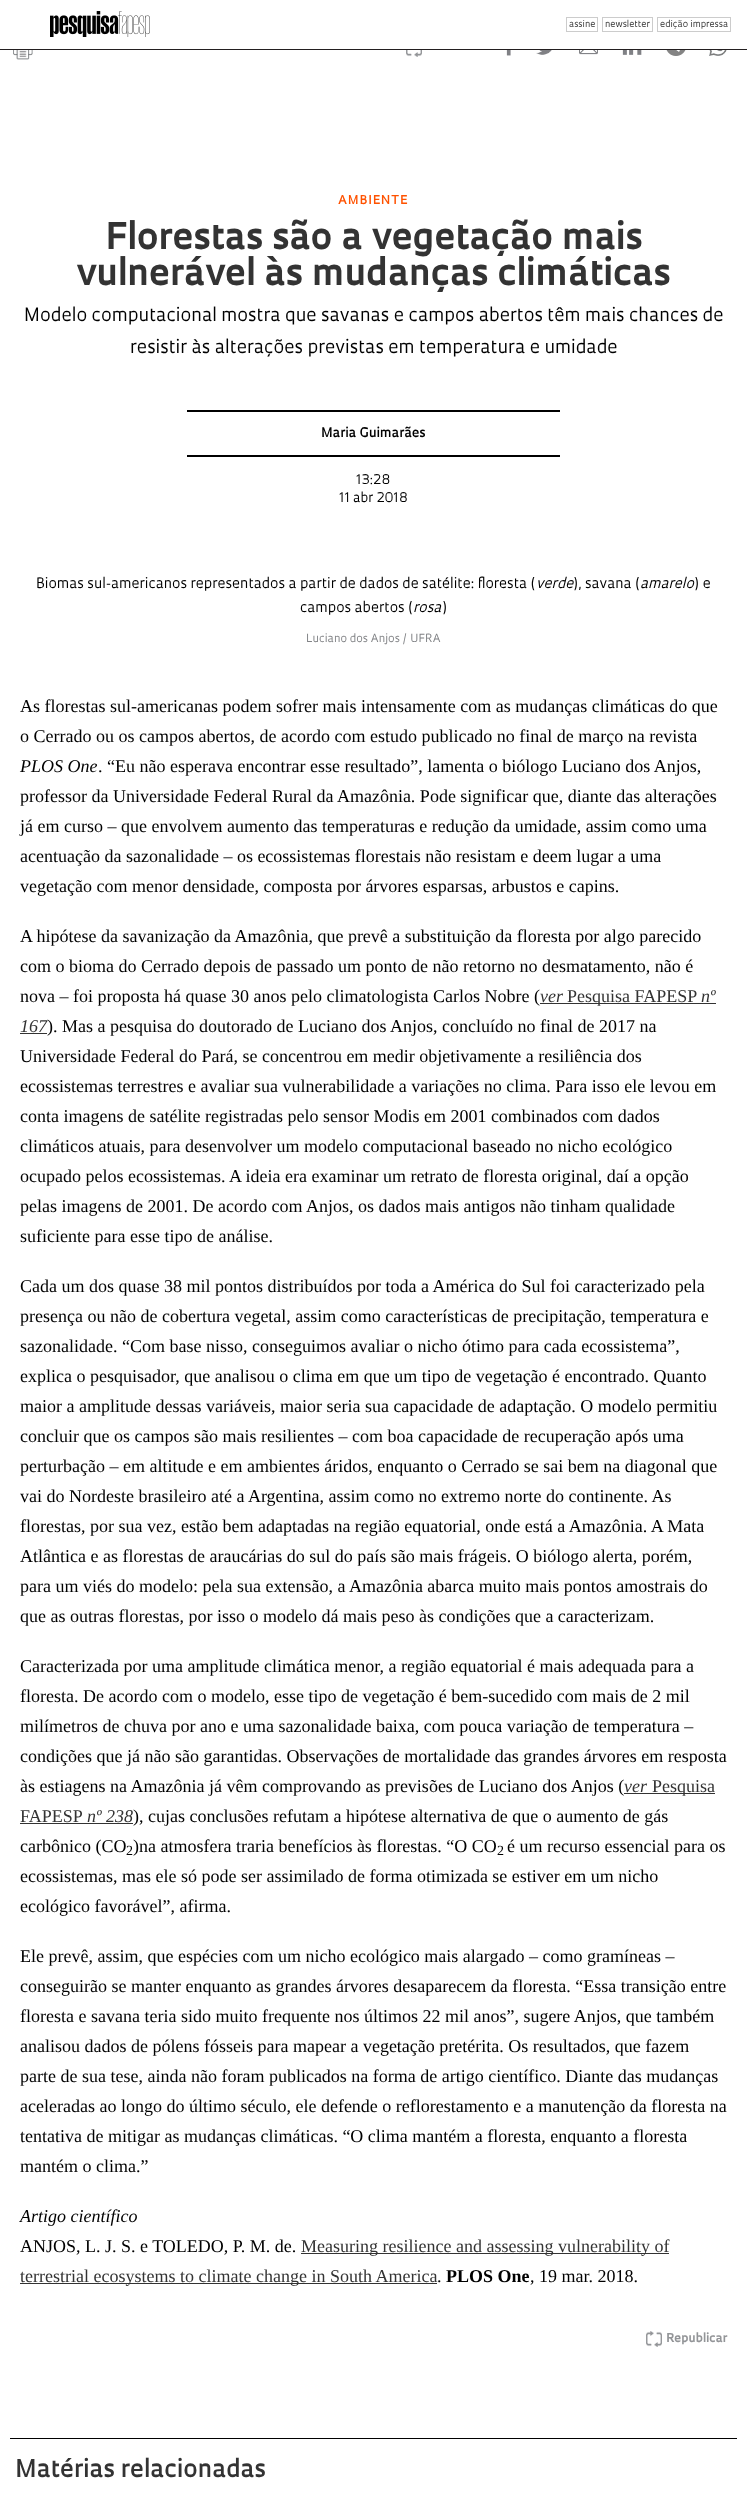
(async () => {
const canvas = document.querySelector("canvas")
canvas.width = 747
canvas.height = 2518
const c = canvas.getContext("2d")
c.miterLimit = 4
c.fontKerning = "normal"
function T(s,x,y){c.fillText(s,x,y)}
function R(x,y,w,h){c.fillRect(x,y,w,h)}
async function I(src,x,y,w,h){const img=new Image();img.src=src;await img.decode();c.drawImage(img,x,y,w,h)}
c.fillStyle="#fff"
R(0,0,747,2518)
c.fillStyle="#231f20"
R(0,49,747,1)
await I("1.png",50,11,100,26)
c.strokeStyle="#ccc"
c.strokeRect(566.5,17.5,31,14)
c.font="9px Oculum"
c.fillStyle="#333"
T("assine",569,27)
c.strokeRect(602.5,17.5,50,14)
T("newsletter",605,27)
c.strokeRect(657.5,17.5,73,14)
T("edição impressa",660,27)
await I("2.png",13,50,20,10)
await I("3.png",406,50,16,7)
await I("4.png",506,50,5,6)
await I("5.png",536,50,16,5)
await I("6.png",579,50,19,5)
await I("7.png",622,50,20,5)
await I("8.png",665,50,22,6)
await I("9.png",709,50,18,6)
c.letterSpacing="1px"
c.font="600 12px Oculum"
c.fillStyle="#ff5200"
T("AMBIENTE",338,204)
c.letterSpacing="0px"
c.font="bold 36px Oculum"
c.fillStyle="#333"
T("Florestas são a vegetação mais",105,249)
T("vulnerável às mudanças climáticas",76,285)
c.font="18px Oculum"
c.fillStyle="#000"
T("Modelo computacional mostra que savanas e campos abertos têm mais chances de",24,321)
T("resistir às alterações previstas em temperatura e umidade",130,353)
R(187,410,373,2)
c.font="600 13px Oculum"
T("Maria Guimarães",321,437)
R(187,455,373,2)
c.font="13px Oculum"
T("13:28",356,484)
T("11 abr 2018",339,502)
c.font="14px Oculum"
T("Biomas sul-americanos representados a partir de dados de satélite: floresta (",36,588)
c.font="italic 14px Oculum"
T("verde",536,588)
c.font="14px Oculum"
T("), savana (",573,588)
c.font="italic 14px Oculum"
T("amarelo",640,588)
c.font="14px Oculum"
T(") e",694,588)
T("campos abertos (",300,612)
c.font="italic 14px Oculum"
T("rosa",413,612)
c.font="14px Oculum"
T(")",442,612)
c.font="11px Oculum"
c.fillStyle="#808285"
T("Luciano dos Anjos / UFRA",306,642)
c.font="18px Liberation Serif"
c.fillStyle="#000"
T("As florestas sul-americanas podem sofrer mais intensamente com as mudanças climáticas do que",20,712)
T("o Cerrado ou os campos abertos, de acordo com estudo publicado no final de março na revista",20,742)
c.font="italic 18px Liberation Serif"
T("PLOS One",20,772)
c.font="18px Liberation Serif"
T(". “Eu não esperava encontrar esse resultado”, lamenta o biólogo Luciano dos Anjos,",98,772)
T("professor da Universidade Federal Rural da Amazônia. Pode significar que, diante das alterações",20,802)
T("já em curso – que envolvem aumento das temperaturas e redução da umidade, assim como uma",20,832)
T("acentuação da sazonalidade – os ecossistemas florestais não resistam e deem lugar a uma",20,862)
T("vegetação com menor densidade, composta por árvores esparsas, arbustos e capins.",20,892)
T("A hipótese da savanização da Amazônia, que prevê a substituição da floresta por algo parecido",20,942)
T("com o bioma do Cerrado depois de passado um ponto de não retorno no desmatamento, não é",20,972)
T("nova – foi proposta há quase 30 anos pelo climatologista Carlos Nobre (",20,1002)
c.font="italic 18px Liberation Serif"
c.fillStyle="#333"
T("ver",540,1002)
R(540,1003,176,1)
c.font="18px Liberation Serif"
T("Pesquisa FAPESP",567,1002)
c.font="italic 18px Liberation Serif"
T("nº",701,1002)
T("167",20,1032)
R(20,1033,27,1)
c.font="18px Liberation Serif"
c.fillStyle="#000"
T("). Mas a pesquisa do doutorado de Luciano dos Anjos, concluído no final de 2017 na",47,1032)
T("Universidade Federal do Pará, se concentrou em medir objetivamente a resiliência dos",20,1062)
T("ecossistemas terrestres e avaliar sua vulnerabilidade a variações no clima. Para isso ele levou em",20,1092)
T("conta imagens de satélite registradas pelo sensor Modis em 2001 combinados com dados",20,1122)
T("climáticos atuais, para desenvolver um modelo computacional baseado no nicho ecológico",20,1152)
T("ocupado pelos ecossistemas. A ideia era examinar um retrato de floresta original, daí a opção",20,1182)
T("pelas imagens de 2001. De acordo com Anjos, os dados mais antigos não tinham qualidade",20,1212)
T("suficiente para esse tipo de análise.",20,1242)
T("Cada um dos quase 38 mil pontos distribuídos por toda a América do Sul foi caracterizado pela",20,1292)
T("presença ou não de cobertura vegetal, assim como características de precipitação, temperatura e",20,1322)
T("sazonalidade. “Com base nisso, conseguimos avaliar o nicho ótimo para cada ecossistema”,",20,1352)
T("explica o pesquisador, que analisou o clima em que um tipo de vegetação é encontrado. Quanto",20,1382)
T("maior a amplitude dessas variáveis, maior seria sua capacidade de adaptação. O modelo permitiu",20,1412)
T("concluir que os campos são mais resilientes – com boa capacidade de recuperação após uma",20,1442)
T("perturbação – em altitude e em ambientes áridos, enquanto o Cerrado se sai bem na diagonal que",20,1472)
T("vai do Nordeste brasileiro até a Argentina, assim como no extremo norte do continente. As",20,1502)
T("florestas, por sua vez, estão bem adaptadas na região equatorial, onde está a Amazônia. A Mata",20,1532)
T("Atlântica e as florestas de araucárias do sul do país são mais frágeis. O biólogo alerta, porém,",20,1562)
T("para um viés do modelo: pela sua extensão, a Amazônia abarca muito mais pontos amostrais do",20,1592)
T("que as outras florestas, por isso o modelo dá mais peso às condições que a caracterizam.",20,1622)
T("Caracterizada por uma amplitude climática menor, a região equatorial é mais adequada para a",20,1672)
T("floresta. De acordo com o modelo, esse tipo de vegetação é bem-sucedido com mais de 2 mil",20,1702)
T("milímetros de chuva por ano e uma sazonalidade baixa, com pouca variação de temperatura –",20,1732)
T("condições que já não são garantidas. Observações de mortalidade das grandes árvores em resposta",20,1762)
T("às estiagens na Amazônia já vêm comprovando as previsões de Luciano dos Anjos (",20,1792)
c.font="italic 18px Liberation Serif"
c.fillStyle="#333"
T("ver",624,1792)
R(624,1793,91,1)
c.font="18px Liberation Serif"
T("Pesquisa",652,1792)
T("FAPESP",20,1822)
R(20,1823,113,1)
c.font="italic 18px Liberation Serif"
T("nº 238",87,1822)
c.font="18px Liberation Serif"
c.fillStyle="#000"
T("), cujas conclusões refutam a hipótese alternativa de que o aumento de gás",133,1822)
T("carbônico (CO",20,1852)
c.font="14px Liberation Serif"
T("2",126,1855)
c.font="18px Liberation Serif"
T(")na atmosfera traria benefícios às florestas. “O CO",133,1852)
c.font="14px Liberation Serif"
T("2",497,1855)
c.font="18px Liberation Serif"
T("é um recurso essencial para os",507,1852)
T("ecossistemas, mas ele só pode ser assimilado de forma otimizada se estiver em um nicho",20,1882)
T("ecológico favorável”, afirma.",20,1912)
T("Ele prevê, assim, que espécies com um nicho ecológico mais alargado – como gramíneas –",20,1962)
T("conseguirão se manter enquanto as grandes árvores desaparecem da floresta. “Essa transição entre",20,1992)
T("floresta e savana teria sido muito frequente nos últimos 22 mil anos”, sugere Anjos, que também",20,2022)
T("analisou dados de pólens fósseis para mapear a vegetação pretérita. Os resultados, que fazem",20,2052)
T("parte de sua tese, ainda não foram publicados na forma de artigo científico. Diante das mudanças",20,2082)
T("aceleradas ao longo do último século, ele defende o reflorestamento e a manutenção da floresta na",20,2112)
T("tentativa de mitigar as mudanças climáticas. “O clima mantém a floresta, enquanto a floresta",20,2142)
T("mantém o clima.”",20,2172)
c.font="italic 18px Liberation Serif"
T("Artigo científico",20,2222)
c.font="18px Liberation Serif"
T("ANJOS, L. J. S. e TOLEDO, P. M. de.",20,2252)
c.fillStyle="#333"
R(301,2253,368,1)
T("Measuring resilience and assessing vulnerability of",301,2252)
R(20,2283,417,1)
T("terrestrial ecosystems to climate change in South America",20,2282)
c.fillStyle="#000"
T(".",437,2282)
c.font="bold 18px Liberation Serif"
T("PLOS One",446,2282)
c.font="18px Liberation Serif"
T(", 19 mar. 2018.",530,2282)
await I("10.png",646,2331,16,16)
c.font="bold 12px Oculum"
c.fillStyle="#939598"
T("Republicar",666,2342)
await I("11.png",10,2438,727,40)
})()
